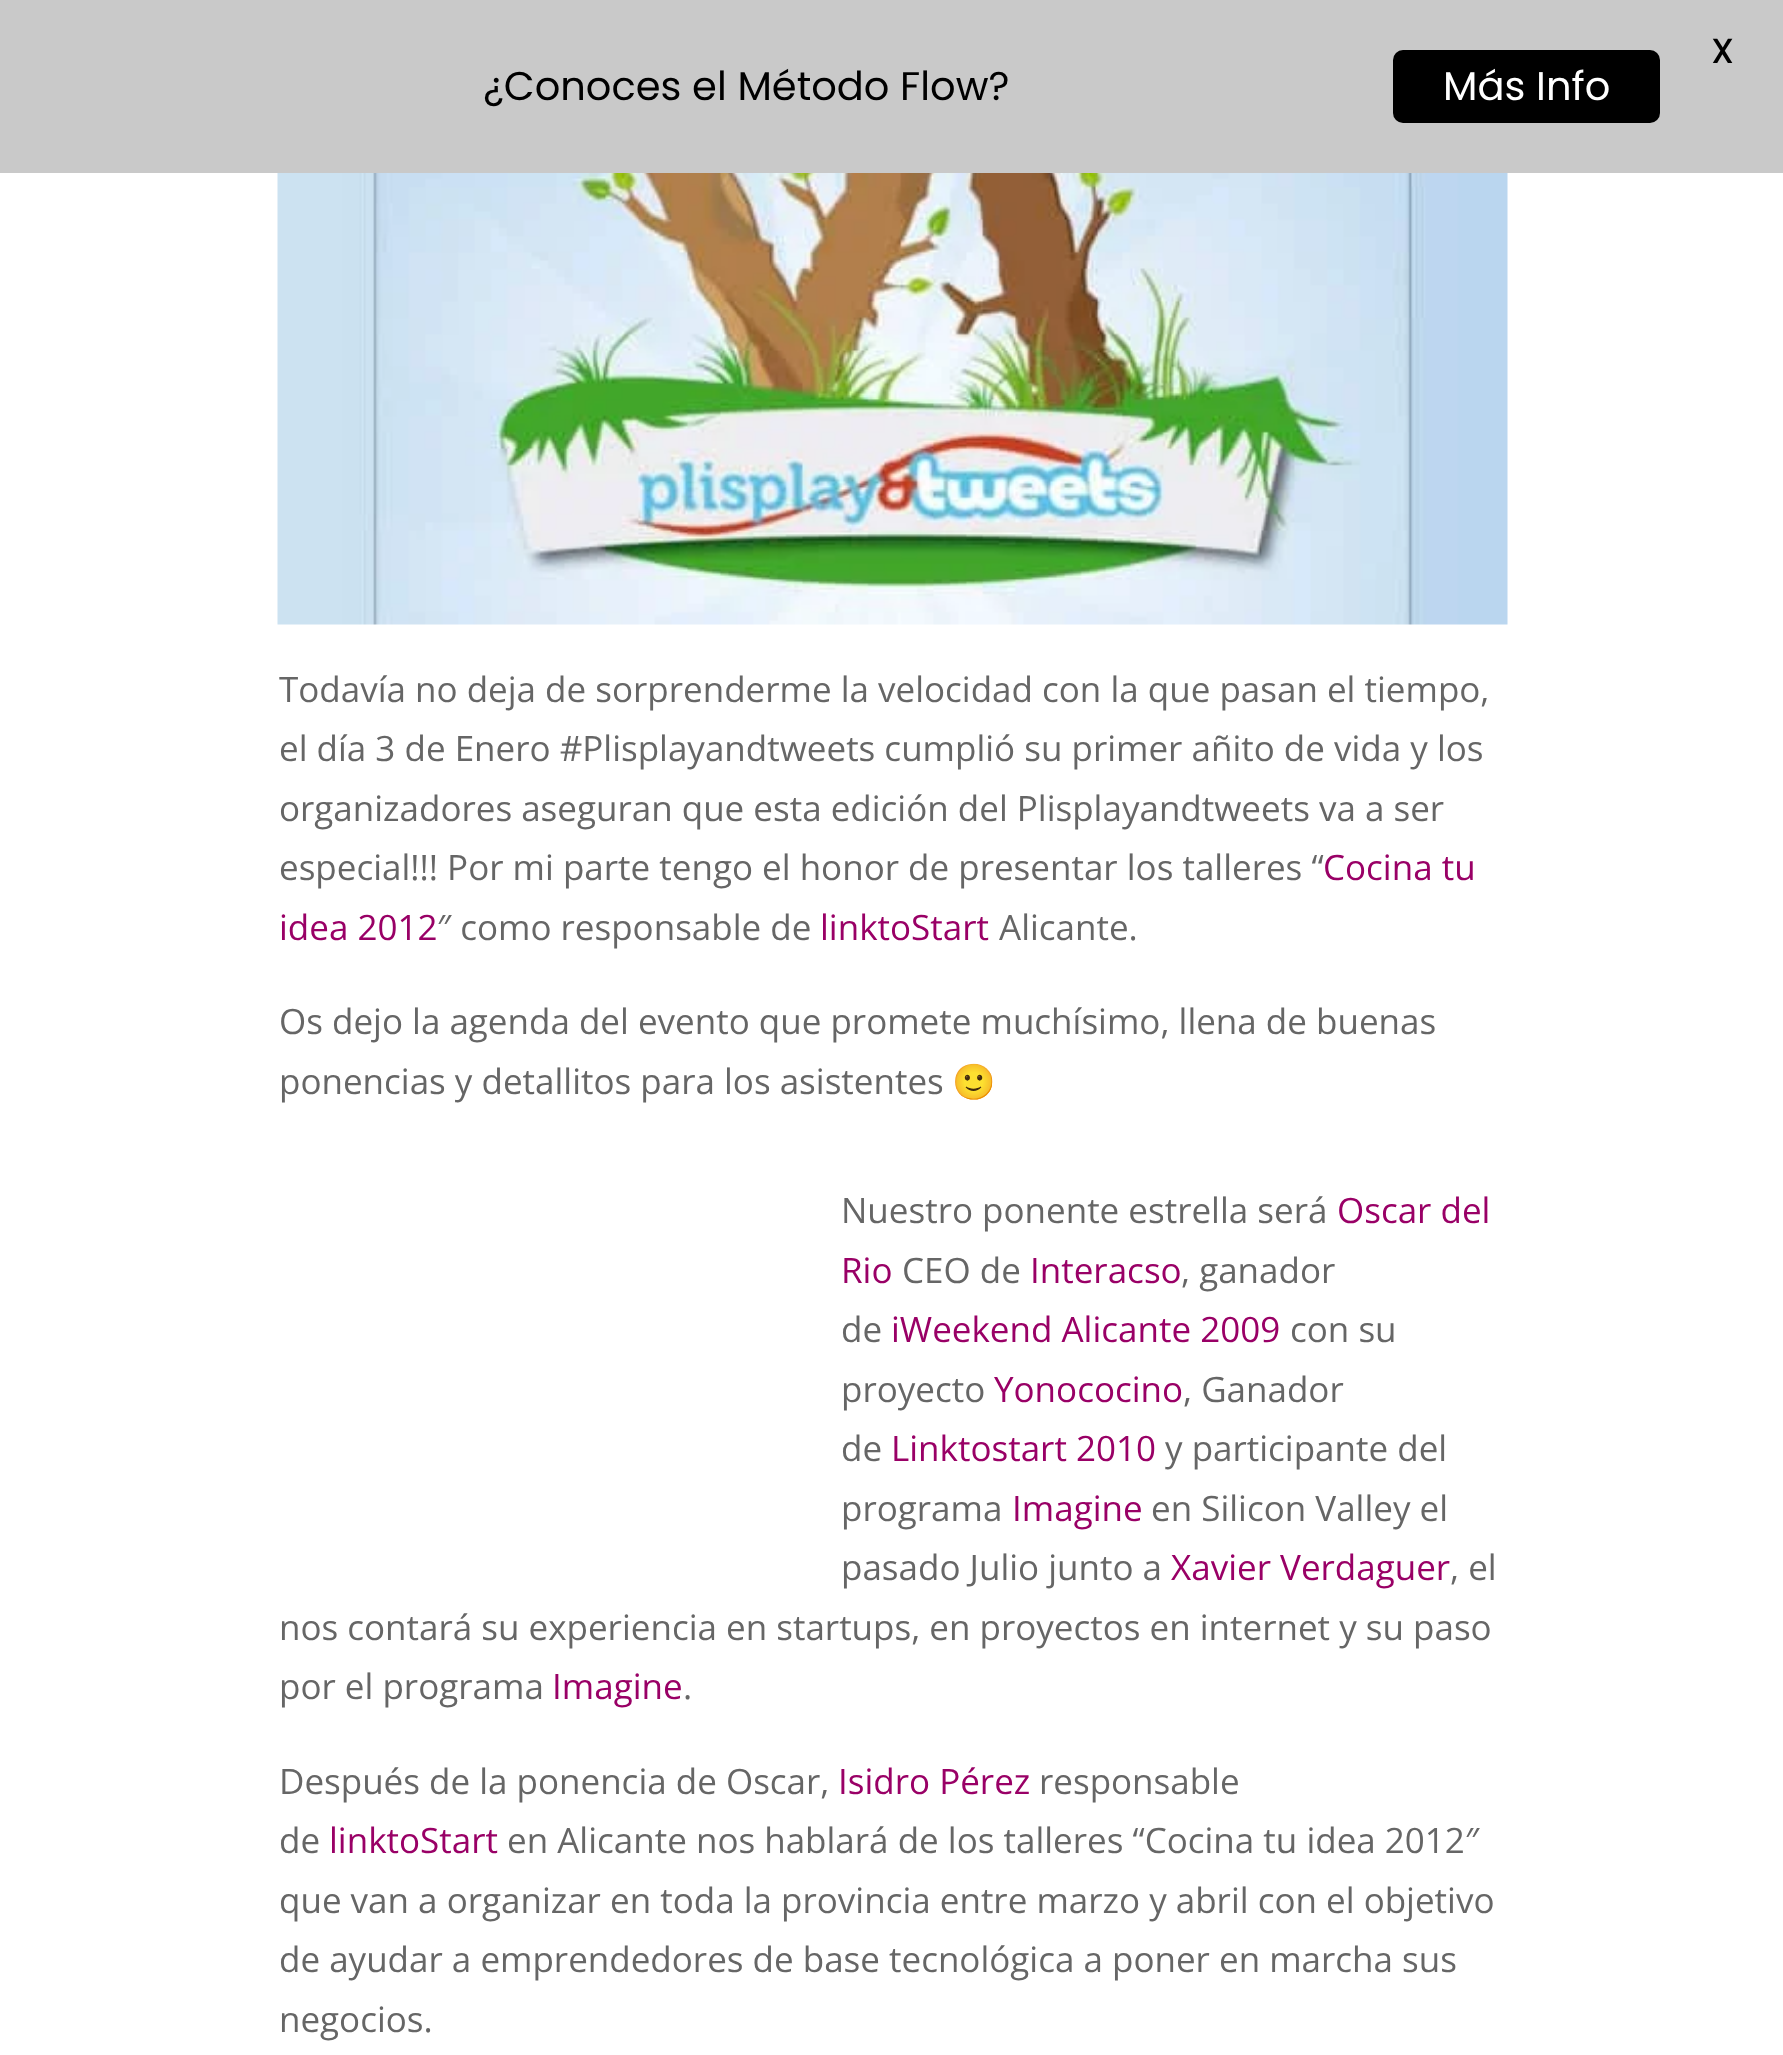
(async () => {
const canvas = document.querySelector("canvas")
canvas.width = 1783
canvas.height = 2055
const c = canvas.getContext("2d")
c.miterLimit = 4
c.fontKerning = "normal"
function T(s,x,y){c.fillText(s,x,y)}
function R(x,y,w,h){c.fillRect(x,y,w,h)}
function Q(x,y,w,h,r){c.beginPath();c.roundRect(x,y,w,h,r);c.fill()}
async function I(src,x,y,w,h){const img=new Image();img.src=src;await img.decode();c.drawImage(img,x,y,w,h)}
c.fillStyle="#fff"
R(0,0,1783,2055)
c.fillStyle="#c9c9c9"
R(0,0,1783,173)
c.font="500 35px Poppins"
c.fillStyle="#000"
T("X",1711,63)
c.font="40px Poppins"
T("¿Conoces el Método Flow?",483,100)
Q(1393,50,267,73,10)
c.fillStyle="#fff"
T("Más Info",1443,100)
await I("1.png",277,173,1231,452)
c.font="35px Open Sans"
c.fillStyle="#666"
T("Todavía no deja de sorprenderme la velocidad con la que pasan el tiempo,",279,702)
T("el día 3 de Enero #Plisplayandtweets cumplió su primer añito de vida y los",279,761)
T("organizadores aseguran que esta edición del Plisplayandtweets va a ser",279,821)
T("especial!!! Por mi parte tengo el honor de presentar los talleres “",279,880)
c.fillStyle="#906"
T("Cocina tu",1323,880)
T("idea 2012",279,940)
c.fillStyle="#666"
T("″ como responsable de",437,940)
c.fillStyle="#906"
T("linktoStart",820,940)
c.fillStyle="#666"
T("Alicante.",999,940)
T("Os dejo la agenda del evento que promete muchísimo, llena de buenas",279,1034)
T("ponencias y detallitos para los asistentes",279,1094)
c.font="35px Noto Color Emoji"
T("🙂",952,1094)
c.font="35px Open Sans"
T("Nuestro ponente estrella será",841,1223)
c.fillStyle="#906"
T("Oscar del",1337,1223)
T("Rio",841,1283)
c.fillStyle="#666"
T("CEO de",902,1283)
c.fillStyle="#906"
T("Interacso",1030,1283)
c.fillStyle="#666"
T(", ganador",1181,1283)
T("de",841,1342)
c.fillStyle="#906"
T("iWeekend Alicante 2009",891,1342)
c.fillStyle="#666"
T("con su",1290,1342)
T("proyecto",841,1402)
c.fillStyle="#906"
T("Yonococino",994,1402)
c.fillStyle="#666"
T(", Ganador",1183,1402)
T("de",841,1461)
c.fillStyle="#906"
T("Linktostart 2010",891,1461)
c.fillStyle="#666"
T("y participante del",1165,1461)
T("programa",841,1521)
c.fillStyle="#906"
T("Imagine",1012,1521)
c.fillStyle="#666"
T("en Silicon Valley el",1151,1521)
T("pasado Julio junto a",841,1580)
c.fillStyle="#906"
T("Xavier Verdaguer",1171,1580)
c.fillStyle="#666"
T(", el",1450,1580)
T("nos contará su experiencia en startups, en proyectos en internet y su paso",279,1640)
T("por el programa",279,1699)
c.fillStyle="#906"
T("Imagine",552,1699)
c.fillStyle="#666"
T(".",683,1699)
T("Después de la ponencia de Oscar,",279,1794)
c.fillStyle="#906"
T("Isidro Pérez",838,1794)
c.fillStyle="#666"
T("responsable",1039,1794)
T("de",279,1853)
c.fillStyle="#906"
T("linktoStart",329,1853)
c.fillStyle="#666"
T("en Alicante nos hablará de los talleres “Cocina tu idea 2012″",507,1853)
T("que van a organizar en toda la provincia entre marzo y abril con el objetivo",279,1913)
T("de ayudar a emprendedores de base tecnológica a poner en marcha sus",279,1972)
T("negocios.",279,2032)
})()
